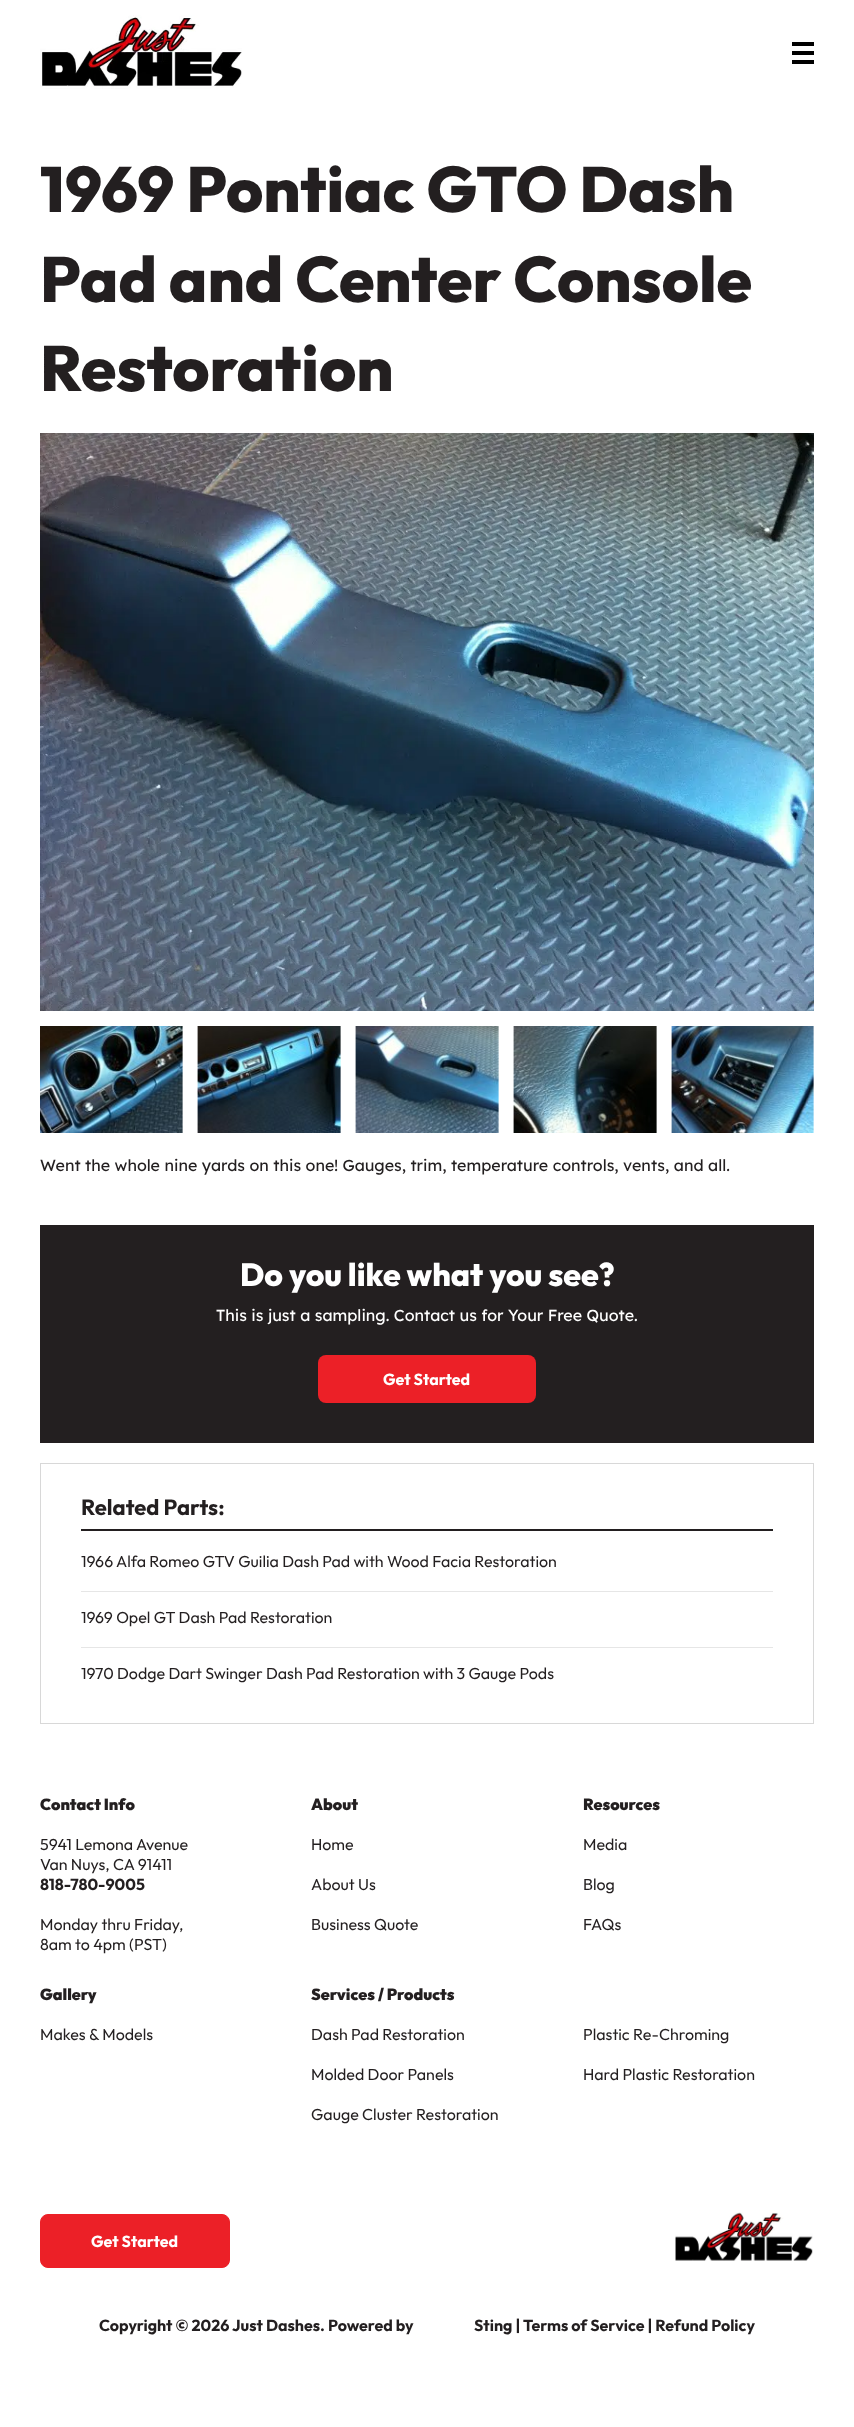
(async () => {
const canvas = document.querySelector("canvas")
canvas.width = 854
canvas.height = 2427
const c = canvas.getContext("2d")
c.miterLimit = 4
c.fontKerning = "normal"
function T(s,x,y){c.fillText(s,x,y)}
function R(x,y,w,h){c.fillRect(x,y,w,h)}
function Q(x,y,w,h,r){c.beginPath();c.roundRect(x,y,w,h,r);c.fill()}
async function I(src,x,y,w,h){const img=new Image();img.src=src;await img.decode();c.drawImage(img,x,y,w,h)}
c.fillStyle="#fff"
R(0,0,854,2427)
await I("1.png",40,15,202,74)
c.fillStyle="#000"
R(792,42,22,4)
R(792,51,22,4)
R(792,60,22,4)
c.font="800 64px Outfit"
c.fillStyle="#231f20"
T("1969 Pontiac GTO Dash",40,212)
T("Pad and Center Console",40,302)
T("Restoration",40,391)
await I("2.png",40,433,774,578)
await I("3.png",40,1026,143,107)
await I("4.png",197,1026,144,107)
await I("5.png",355,1026,144,107)
await I("6.png",513,1026,144,107)
await I("7.png",671,1026,143,107)
c.font="16px Lexend"
T("Went the whole nine yards on this one! Gauges, trim, temperature controls, vents, and all.",40,1171)
R(40,1225,774,218)
c.font="800 32px Outfit"
c.fillStyle="#fff"
T("Do you like what you see?",240,1286)
c.font="16px Lexend"
T("This is just a sampling. Contact us for Your Free Quote.",216,1321)
c.fillStyle="#ec2027"
Q(318,1355,218,48,8)
c.font="bold 16px Outfit"
c.fillStyle="#fff"
T("Get Started",383,1385)
c.strokeStyle="#d8d8d8"
c.strokeRect(40.5,1463.5,773,260)
c.font="bold 22px Outfit"
c.fillStyle="#231f20"
T("Related Parts:",81,1515)
R(81,1529,692,2)
c.fillStyle="#e6e6e6"
R(81,1591,692,1)
c.font="16px Outfit"
c.fillStyle="#231f20"
T("1966 Alfa Romeo GTV Guilia Dash Pad with Wood Facia Restoration",81,1567)
c.fillStyle="#e6e6e6"
R(81,1647,692,1)
c.fillStyle="#231f20"
T("1969 Opel GT Dash Pad Restoration",81,1623)
T("1970 Dodge Dart Swinger Dash Pad Restoration with 3 Gauge Pods",81,1679)
c.font="900 16px Outfit"
T("Contact Info",40,1810)
c.font="16px Outfit"
T("5941 Lemona Avenue",40,1850)
T("Van Nuys, CA 91411",40,1870)
c.font="bold 16px Outfit"
T("818-780-9005",40,1890)
c.font="16px Outfit"
T("Monday thru Friday,",40,1930)
T("8am to 4pm (PST)",40,1950)
c.font="900 16px Outfit"
T("About",311,1810)
c.font="16px Outfit"
T("Home",311,1850)
T("About Us",311,1890)
T("Business Quote",311,1930)
c.font="900 16px Outfit"
T("Resources",583,1810)
c.font="16px Outfit"
T("Media",583,1850)
T("Blog",583,1890)
T("FAQs",583,1930)
c.font="900 16px Outfit"
T("Gallery",40,2000)
c.font="16px Outfit"
T("Makes & Models",40,2040)
c.font="900 16px Outfit"
T("Services / Products",311,2000)
c.font="16px Outfit"
T("Dash Pad Restoration",311,2040)
T("Molded Door Panels",311,2080)
T("Gauge Cluster Restoration",311,2120)
T("Plastic Re-Chroming",583,2040)
T("Hard Plastic Restoration",583,2080)
c.fillStyle="#ec2027"
c.beginPath()
c.roundRect(40.5,2214.5,189,53,7.5)
c.fill()
c.strokeStyle="#ec2027"
c.stroke()
c.font="bold 16px Outfit"
c.fillStyle="#fff"
T("Get Started",91,2247)
await I("8.png",675,2212,138,49)
c.fillStyle="#231f20"
T("Copyright © 2026 Just Dashes. Powered by",99,2331)
T("Sting | Terms of Service | Refund Policy",474,2331)
})()
